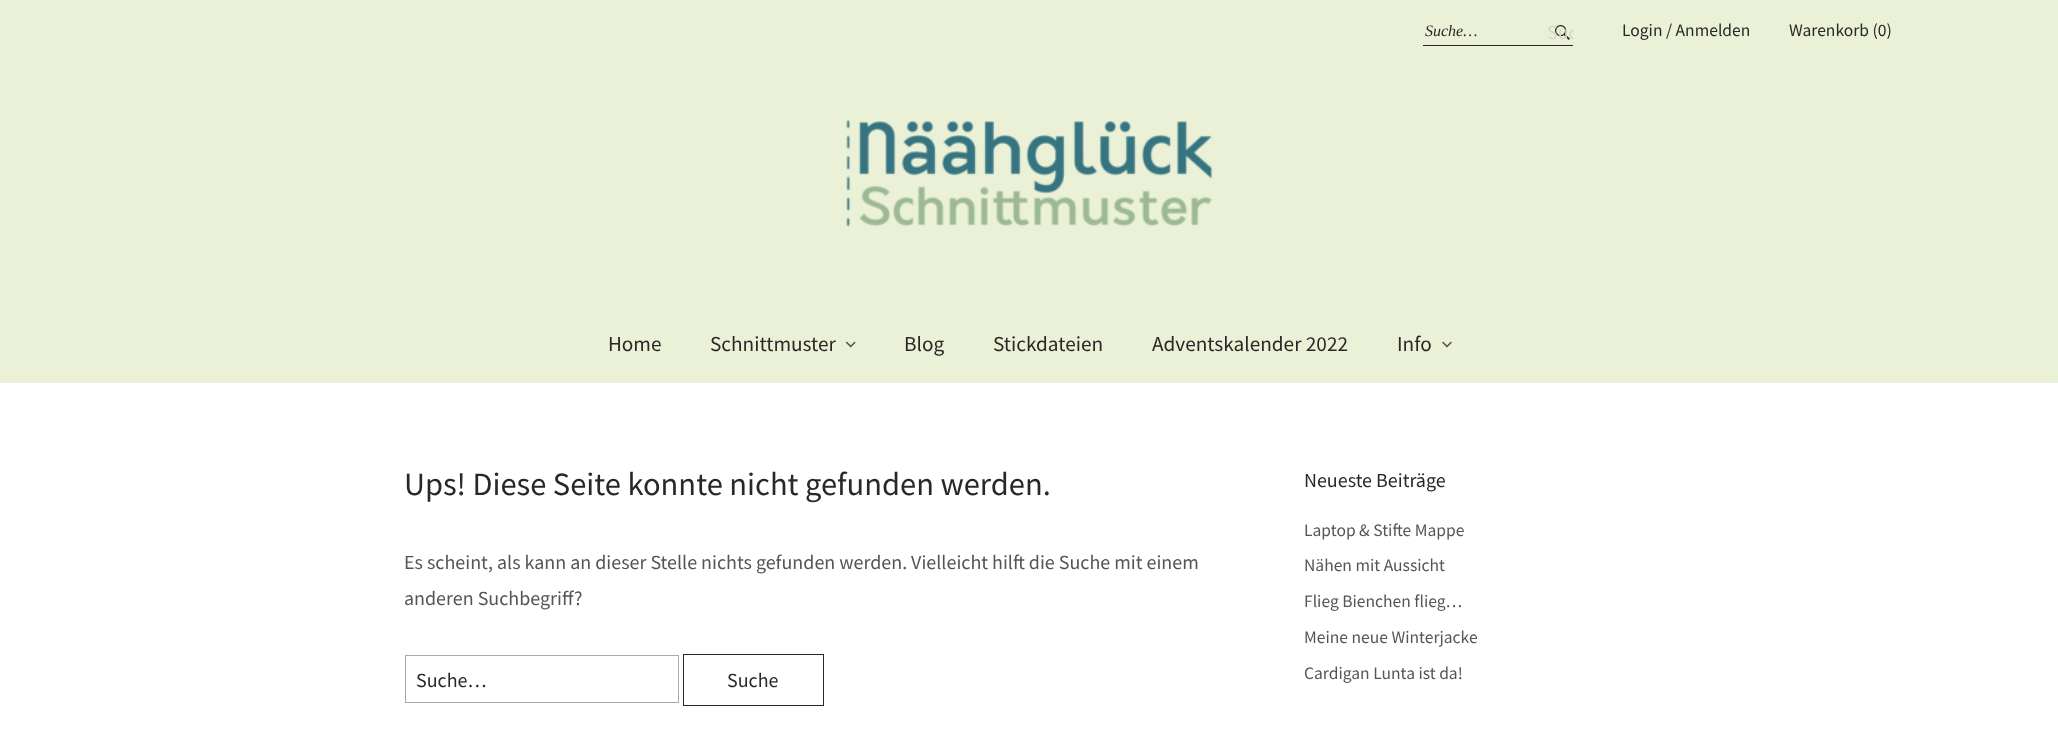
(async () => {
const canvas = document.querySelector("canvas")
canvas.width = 2058
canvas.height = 744
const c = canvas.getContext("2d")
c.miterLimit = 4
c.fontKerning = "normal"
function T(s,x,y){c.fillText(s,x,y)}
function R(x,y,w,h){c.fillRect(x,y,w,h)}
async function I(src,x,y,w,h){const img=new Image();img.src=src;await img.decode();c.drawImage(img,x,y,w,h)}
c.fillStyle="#fff"
R(0,0,2058,744)
c.fillStyle="#eaf1d6"
R(0,0,2058,383)
c.fillStyle="#ededee"
R(0,381,2058,1)
c.fillStyle="#282828"
R(1423,45,150,1)
c.font="italic 16px Liberation Serif"
T("Suche…",1425,36)
await I("1.png",1555,25,15,15)
c.save()
c.beginPath()
c.rect(1548,16,25,30)
c.clip()
c.font="20px Source Sans Pro"
c.fillStyle="#d4dac2"
T("Suc",1547,39)
c.restore()
c.font="17.5px Source Sans Pro"
T("Login / Anmelden",1622,36)
T("Warenkorb (0)",1789,36)
await I("2.png",846,120,367,107)
c.font="21.25px Source Sans Pro"
T("Home",608,351)
T("Schnittmuster",710,351)
await I("3.png",845,341,11,7)
T("Blog",904,351)
T("Stickdateien",993,351)
T("Adventskalender 2022",1152,351)
T("Info",1397,351)
await I("4.png",1442,341,10,7)
c.font="32.5px Source Sans Pro"
T("Ups! Diese Seite konnte nicht gefunden werden.",404,495)
c.font="20px Source Sans Pro"
c.fillStyle="#555"
T("Es scheint, als kann an dieser Stelle nichts gefunden werden. Vielleicht hilft die Suche mit einem",404,569)
T("anderen Suchbegriff?",404,605)
c.strokeStyle="#a9a9a9"
c.strokeRect(405.5,655.5,273,47)
c.fillStyle="#282828"
T("Suche…",416,687)
c.strokeStyle="#282828"
c.strokeRect(683.5,654.5,140,51)
T("Suche",727,687)
T("Neueste Beiträge",1304,487)
c.font="17.5px Source Sans Pro"
c.fillStyle="#555"
T("Laptop & Stifte Mappe",1304,536)
T("Nähen mit Aussicht",1304,571)
T("Flieg Bienchen flieg…",1304,607)
T("Meine neue Winterjacke",1304,643)
T("Cardigan Lunta ist da!",1304,679)
})()
